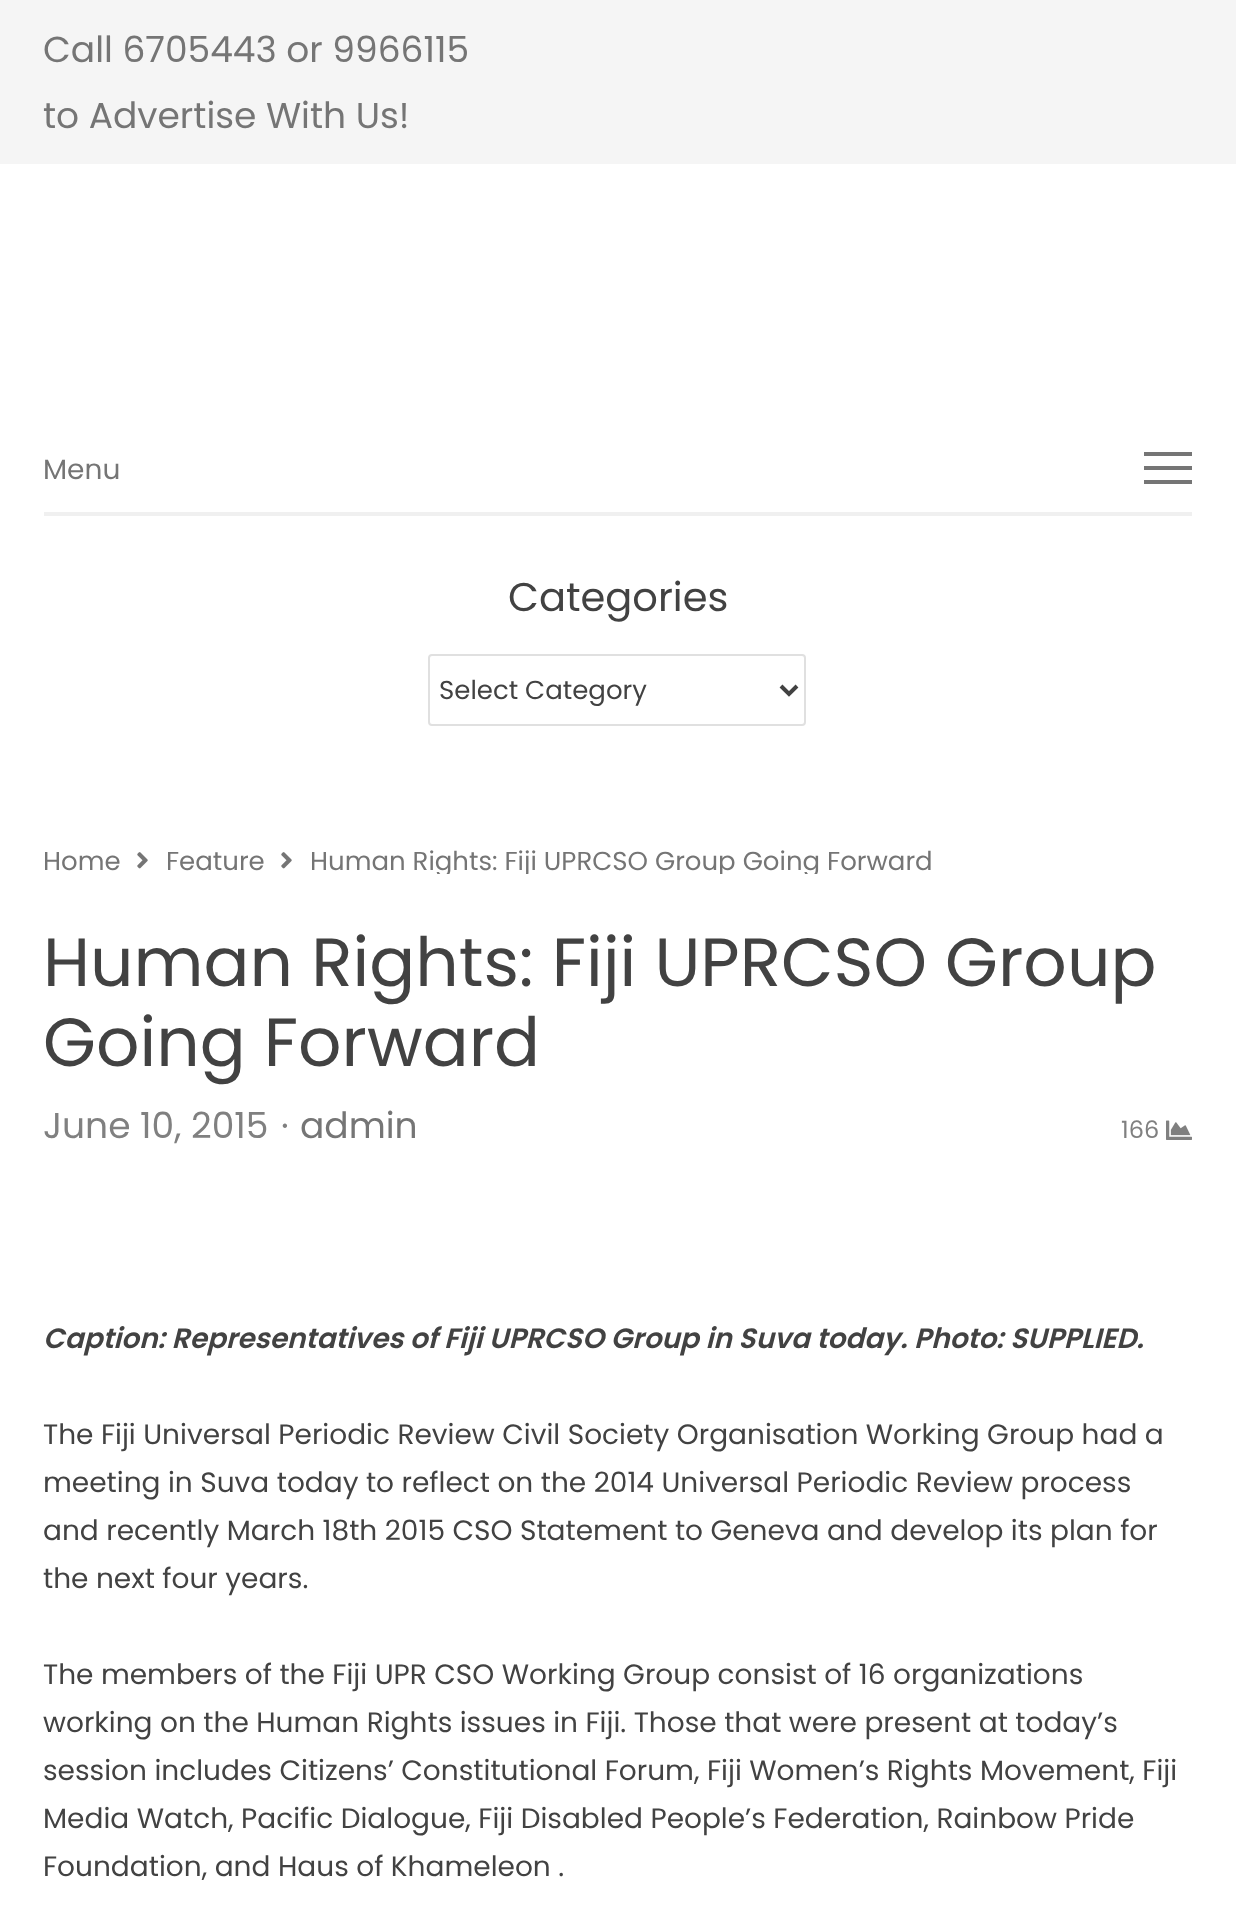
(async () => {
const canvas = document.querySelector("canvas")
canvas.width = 1236
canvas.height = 1932
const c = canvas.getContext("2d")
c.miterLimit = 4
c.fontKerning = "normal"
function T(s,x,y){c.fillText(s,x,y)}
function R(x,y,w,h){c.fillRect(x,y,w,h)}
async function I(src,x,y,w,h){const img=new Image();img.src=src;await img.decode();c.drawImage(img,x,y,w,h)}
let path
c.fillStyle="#fff"
R(0,0,1236,1932)
c.fillStyle="#f5f5f5"
R(0,0,1236,164)
c.font="36px Poppins"
c.fillStyle="#757575"
T("Call 6705443 or 9966115",43,62)
T("to Advertise With Us!",43,128)
c.fillStyle="#f0f0f0"
R(44,512,1148,4)
c.font="28px Poppins"
c.fillStyle="#757575"
T("Menu",43,479)
R(1144,452,48,4)
R(1144,466,48,4)
R(1144,480,48,4)
c.font="40px Poppins"
c.fillStyle="#424242"
T("Categories",508,611)
c.beginPath()
c.roundRect(429,655,376,70,3)
c.strokeStyle="#e0e0e0"
c.lineWidth=2
c.stroke()
path = new Path2D("M781 686l8 8l8-8")
c.strokeStyle="#424242"
c.lineWidth=4
c.stroke(path)
c.font="26px Poppins"
T("Select Category",439,699)
c.fillStyle="#757575"
T("Home",43,870)
await I("1.png",137,852,11,17)
T("Feature",166,870)
await I("1.png",281,852,11,17)
c.save()
c.beginPath()
c.rect(44,834,1148,40)
c.clip()
T("Human Rights: Fiji UPRCSO Group Going Forward",310,870)
c.restore()
c.font="68px Poppins"
c.fillStyle="#424242"
T("Human Rights: Fiji UPRCSO Group",43,986)
T("Going Forward",43,1066)
c.font="36px Poppins"
c.fillStyle="#808080"
T("June 10, 2015",43,1138)
T("·",281,1138)
c.fillStyle="#757575"
T("admin",300,1138)
c.font="24px Poppins"
c.fillStyle="#808080"
T("166",1121,1138)
await I("2.png",1166,1120,26,20)
c.font="italic 600 28px Poppins"
c.fillStyle="#424242"
T("Caption: Representatives of Fiji UPRCSO Group in Suva today. Photo: SUPPLIED.",43,1348)
c.font="28px Poppins"
T("The Fiji Universal Periodic Review Civil Society Organisation Working Group had a",43,1444)
T("meeting in Suva today to reflect on the 2014 Universal Periodic Review process",43,1492)
T("and recently March 18th 2015 CSO Statement to Geneva and develop its plan for",43,1540)
T("the next four years.",43,1588)
T("The members of the Fiji UPR CSO Working Group consist of 16 organizations",43,1684)
T("working on the Human Rights issues in Fiji. Those that were present at today’s",43,1732)
T("session includes Citizens’ Constitutional Forum, Fiji Women’s Rights Movement, Fiji",43,1780)
T("Media Watch, Pacific Dialogue, Fiji Disabled People’s Federation, Rainbow Pride",43,1828)
T("Foundation, and Haus of Khameleon .",43,1876)
})()
